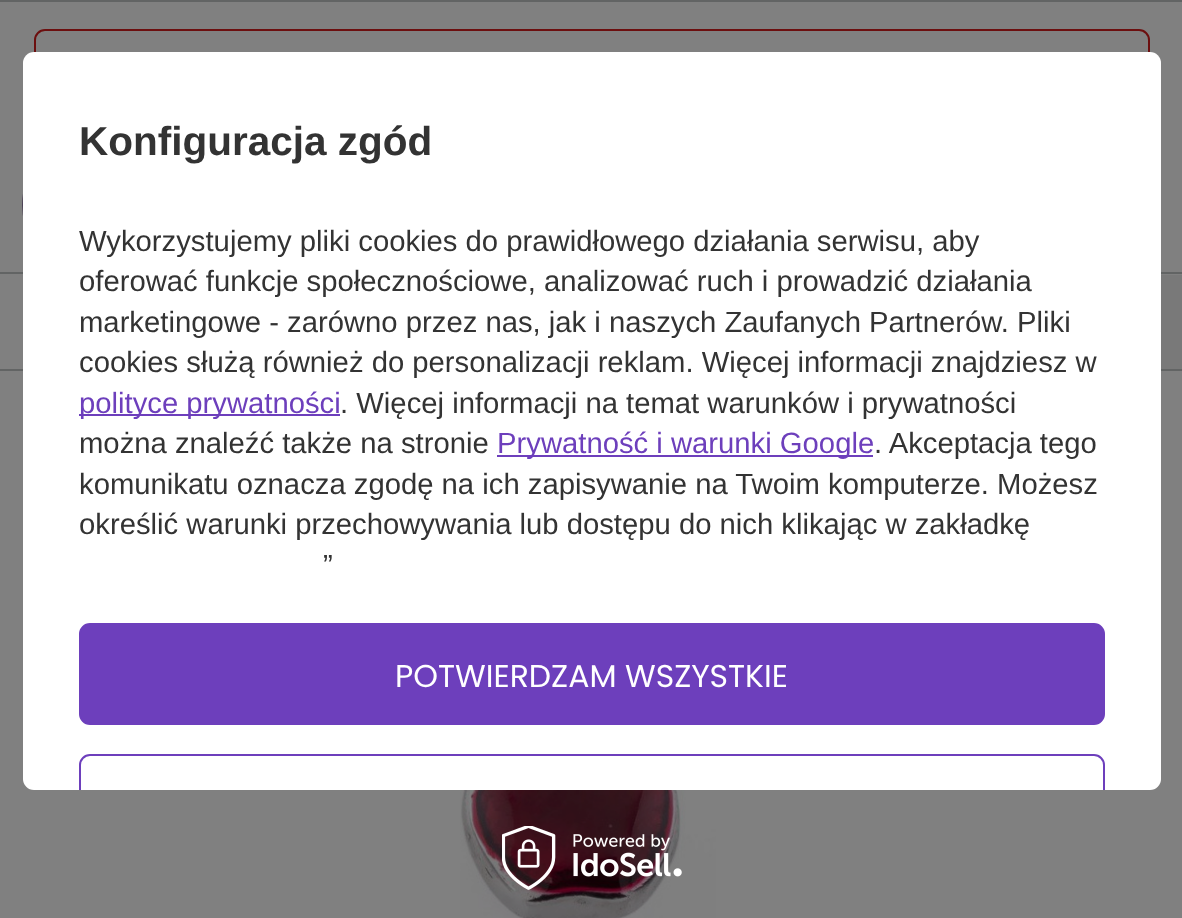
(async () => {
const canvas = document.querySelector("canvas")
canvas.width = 1182
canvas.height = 918
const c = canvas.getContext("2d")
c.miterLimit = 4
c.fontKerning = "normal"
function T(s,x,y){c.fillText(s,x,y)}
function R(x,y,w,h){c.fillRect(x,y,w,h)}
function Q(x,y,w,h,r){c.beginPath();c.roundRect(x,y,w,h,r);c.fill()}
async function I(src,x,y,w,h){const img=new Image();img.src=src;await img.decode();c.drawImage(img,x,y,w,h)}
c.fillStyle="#808080"
R(0,0,1182,918)
c.fillStyle="#626464"
R(0,272,1182,2)
R(0,0,1182,2)
await I("1.png",22,194,1,22)
c.beginPath()
c.roundRect(35,30,1114,84,10)
c.strokeStyle="#6c0f0f"
c.lineWidth=2
c.stroke()
c.fillStyle="#797979"
R(1161,275,21,94)
c.fillStyle="#626464"
R(0,369,1182,2)
await I("2.png",460,790,256,128)
c.fillStyle="#fff"
Q(23,52,1138,738,11)
c.font="bold 40.5px Liberation Sans"
c.fillStyle="#333"
T("Konfiguracja zgód",79,155)
c.font="29.25px Liberation Sans"
T("Wykorzystujemy pliki cookies do prawidłowego działania serwisu, aby",79,251)
T("oferować funkcje społecznościowe, analizować ruch i prowadzić działania",79,291)
T("marketingowe - zarówno przez nas, jak i naszych Zaufanych Partnerów. Pliki",79,332)
T("cookies służą również do personalizacji reklam. Więcej informacji znajdziesz w",79,372)
c.fillStyle="#6d3fbc"
R(79,414,261,2)
T("polityce prywatności",79,413)
c.fillStyle="#333"
T(". Więcej informacji na temat warunków i prywatności",340,413)
T("można znaleźć także na stronie",79,453)
c.fillStyle="#6d3fbc"
R(497,455,376,2)
T("Prywatność i warunki Google",497,453)
c.fillStyle="#333"
T(". Akceptacja tego",874,453)
T("komunikatu oznacza zgodę na ich zapisywanie na Twoim komputerze. Możesz",79,494)
T("określić warunki przechowywania lub dostępu do nich klikając w zakładkę",79,534)
T("”",323,575)
c.fillStyle="#6d3fbc"
c.beginPath()
c.roundRect(80,624,1024,100,10)
c.fill()
c.strokeStyle="#6d3fbc"
c.stroke()
c.font="31.5px Poppins"
c.fillStyle="#fff"
T("POTWIERDZAM WSZYSTKIE",395,687)
c.save()
c.beginPath()
c.rect(23,52,1138,738)
c.clip()
c.beginPath()
c.roundRect(80,755,1024,99,10)
c.stroke()
c.restore()
await I("3.png",502,826,180,64)
})()
